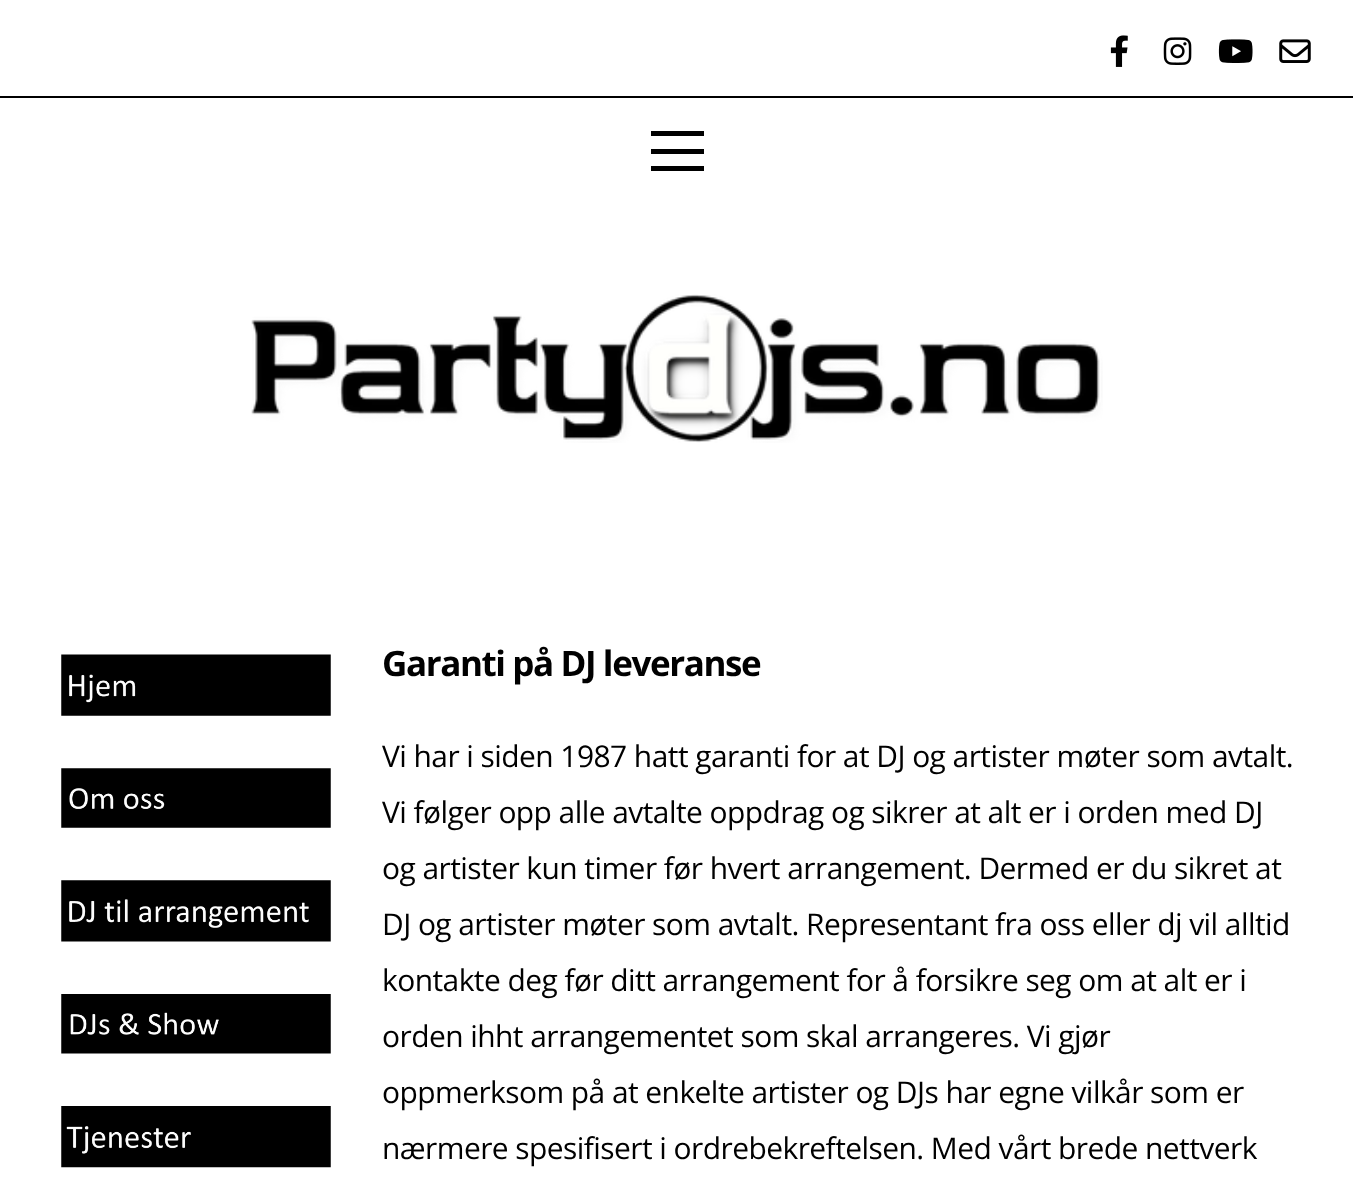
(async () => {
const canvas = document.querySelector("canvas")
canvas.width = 1353
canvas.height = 1204
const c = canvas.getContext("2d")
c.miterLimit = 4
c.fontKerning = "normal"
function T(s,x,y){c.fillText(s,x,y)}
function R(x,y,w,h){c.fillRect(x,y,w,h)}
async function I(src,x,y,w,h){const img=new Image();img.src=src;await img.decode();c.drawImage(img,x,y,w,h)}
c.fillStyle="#fff"
R(0,0,1353,1204)
c.fillStyle="#000"
R(0,96,1353,2)
await I("1.png",1110,35,18,32)
await I("2.png",1163,37,29,28)
await I("3.png",1218,39,35,24)
await I("4.png",1279,39,32,24)
R(651,131,53,5)
R(651,149,53,5)
R(651,166,53,5)
await I("5.png",251,294,852,149)
await I("6.png",61,654,270,62)
await I("7.png",61,768,270,60)
await I("8.png",61,880,270,62)
await I("9.png",61,994,270,60)
await I("10.png",61,1106,270,62)
c.letterSpacing="-1.4px"
c.font="bold 35px Open Sans"
T("Garanti på DJ leveranse",382,676)
c.letterSpacing="-0.55px"
c.font="29.95px Open Sans"
T("Vi har i siden 1987 hatt garanti for at DJ og artister møter som avtalt.",382,767)
T("Vi følger opp alle avtalte oppdrag og sikrer at alt er i orden med DJ",382,823)
T("og artister kun timer før hvert arrangement. Dermed er du sikret at",382,879)
T("DJ og artister møter som avtalt. Representant fra oss eller dj vil alltid",382,935)
T("kontakte deg før ditt arrangement for å forsikre seg om at alt er i",382,991)
T("orden ihht arrangementet som skal arrangeres. Vi gjør",382,1047)
T("oppmerksom på at enkelte artister og DJs har egne vilkår som er",382,1103)
T("nærmere spesifisert i ordrebekreftelsen. Med vårt brede nettverk",382,1159)
})()
